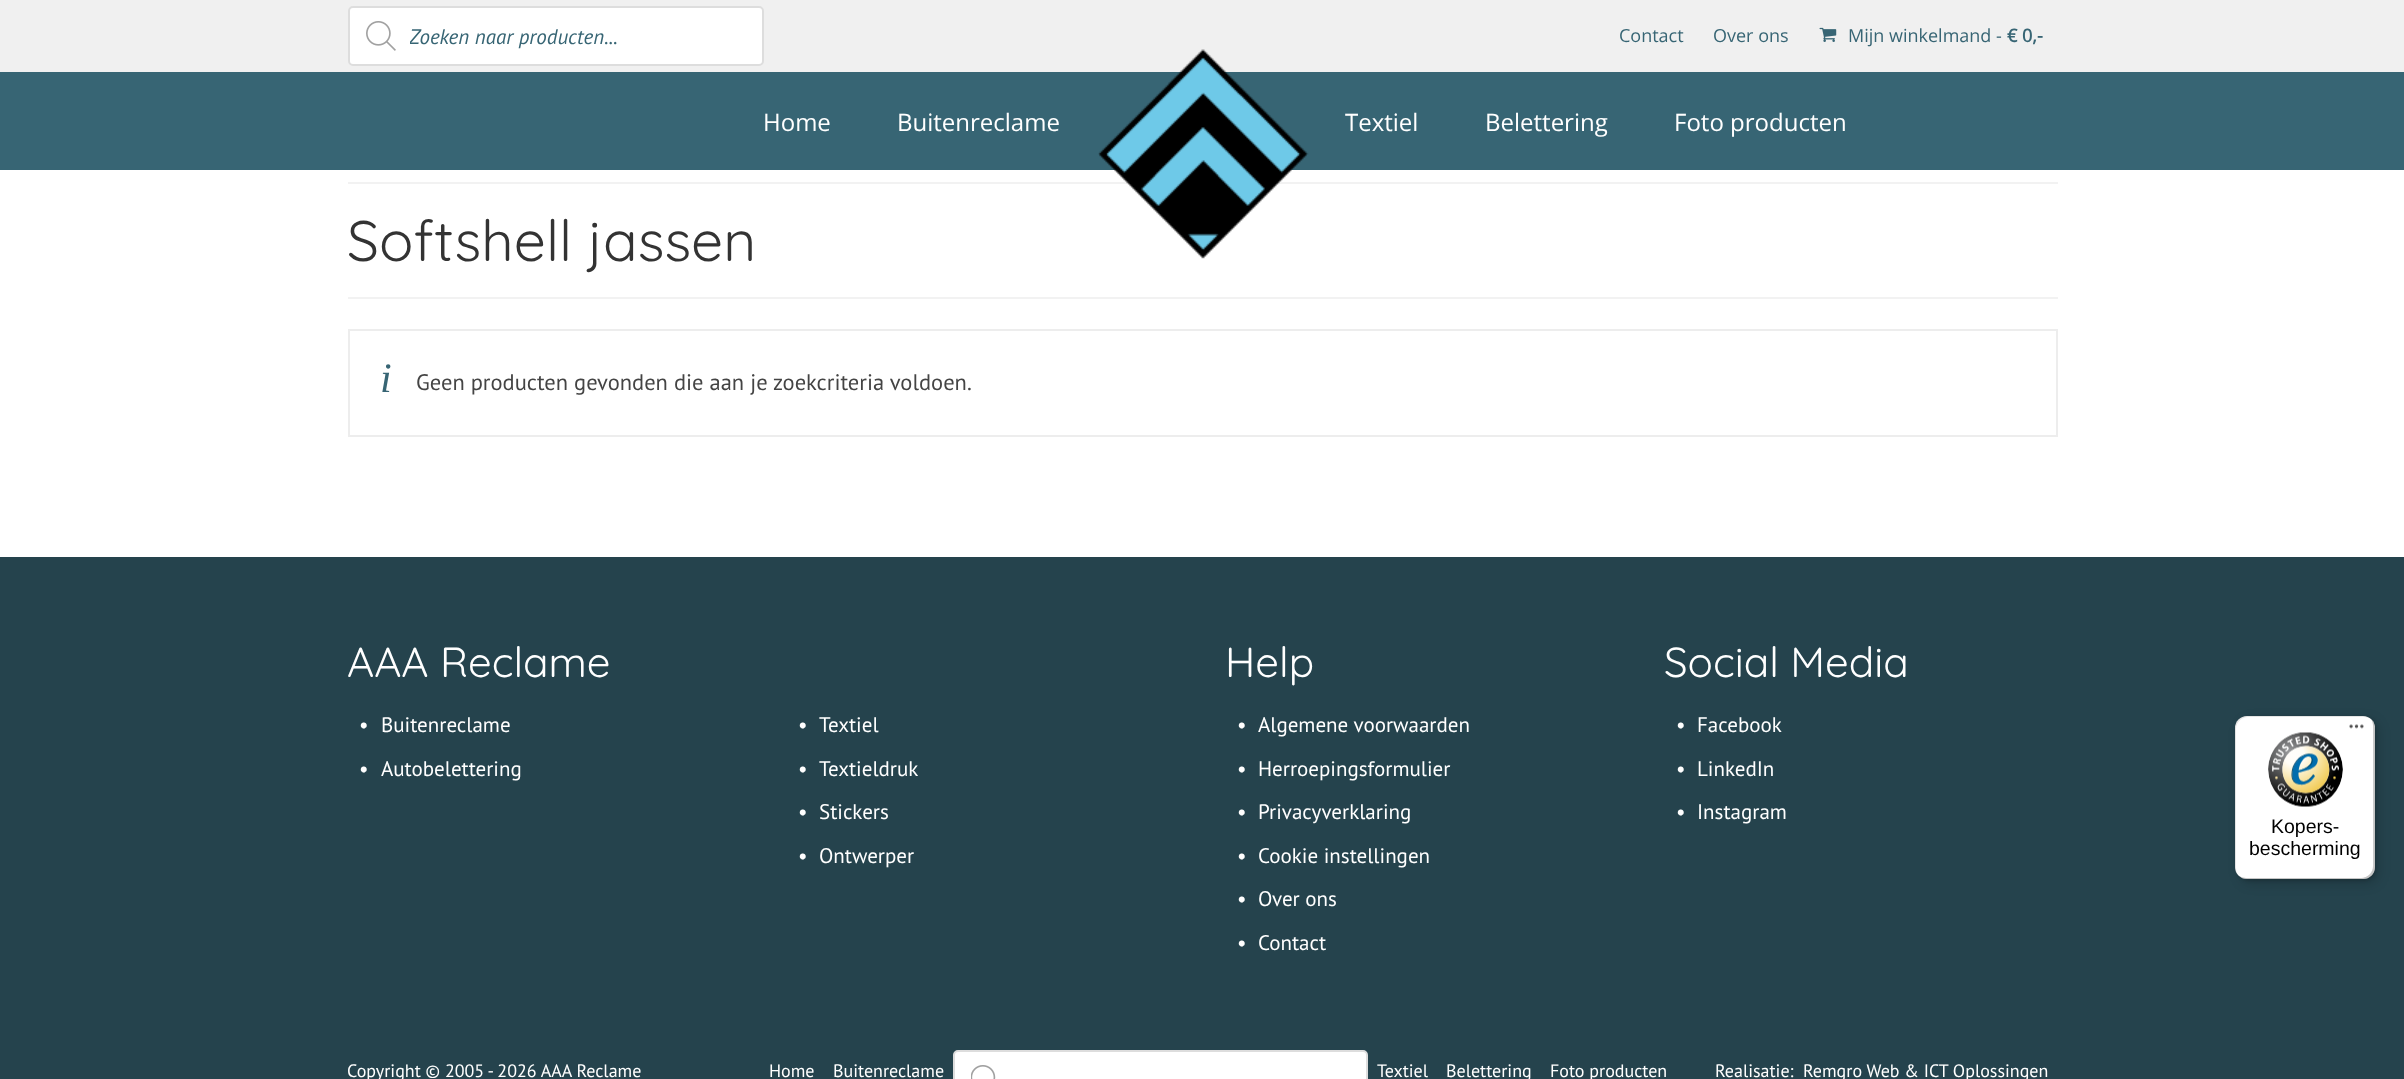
(async () => {
const canvas = document.querySelector("canvas")
canvas.width = 2404
canvas.height = 1079
const c = canvas.getContext("2d")
c.miterLimit = 4
c.fontKerning = "normal"
function T(s,x,y){c.fillText(s,x,y)}
function R(x,y,w,h){c.fillRect(x,y,w,h)}
function Q(x,y,w,h,r){c.beginPath();c.roundRect(x,y,w,h,r);c.fill()}
async function I(src,x,y,w,h){const img=new Image();img.src=src;await img.decode();c.drawImage(img,x,y,w,h)}
let path
c.fillStyle="#25434d"
R(0,0,2404,1079)
c.fillStyle="#376574"
R(0,72,2404,98)
c.fillStyle="#f0f0f0"
R(0,0,2404,72)
c.fillStyle="#fff"
c.beginPath()
c.roundRect(349,7,414,58,4)
c.fill()
c.strokeStyle="#ddd"
c.lineWidth=2
c.stroke()
await I("1.png",366,21,30,30)
c.save()
c.beginPath()
c.rect(410,23,330,27)
c.clip()
c.font="italic 21px PT Sans"
c.fillStyle="#376574"
T("Zoeken naar producten...",409,44)
c.restore()
c.font="18px Open Sans"
c.fillStyle="#376574"
T("Contact",1619,42)
T("Over ons",1713,42)
await I("2.png",1819,27,18,15)
T("Mijn winkelmand -",1848,42)
c.font="bold 18px Open Sans"
T("€ 0,-",2007,42)
c.fillStyle="#fff"
R(0,170,2404,387)
c.fillStyle="#f2f2f2"
R(348,182,1710,2)
await I("3.png",1098,49,211,210)
c.font="24px Open Sans"
c.fillStyle="#fff"
T("Home",763,131)
T("Buitenreclame",897,131)
T("Textiel",1345,131)
T("Belettering",1485,131)
T("Foto producten",1674,131)
c.fillStyle="#f2f2f2"
R(348,297,1710,2)
c.font="57px Quicksand"
c.fillStyle="#333"
T("Softshell jassen",347,261)
c.strokeStyle="#ededed"
c.strokeRect(349,330,1708,106)
c.font="italic 42px Liberation Serif"
c.fillStyle="#376574"
T("i",380,392)
c.font="22.5px PT Sans"
c.fillStyle="#444"
T("Geen producten gevonden die aan je zoekcriteria voldoen.",416,390)
c.font="42px Quicksand"
c.fillStyle="#fff"
T("AAA Reclame",347,677)
c.font="21px PT Sans"
T("•",359,732)
T("Buitenreclame",381,732)
T("•",359,776)
T("Autobelettering",381,776)
T("•",798,732)
T("Textiel",819,732)
T("•",798,776)
T("Textieldruk",819,776)
T("•",798,819)
T("Stickers",819,819)
T("•",798,863)
T("Ontwerper",819,863)
c.font="42px Quicksand"
T("Help",1225,677)
c.font="21px PT Sans"
T("•",1237,732)
T("Algemene voorwaarden",1258,732)
T("•",1237,776)
T("Herroepingsformulier",1258,776)
T("•",1237,819)
T("Privacyverklaring",1258,819)
T("•",1237,863)
T("Cookie instellingen",1258,863)
T("•",1237,906)
T("Over ons",1258,906)
T("•",1237,950)
T("Contact",1258,950)
c.font="42px Quicksand"
T("Social Media",1664,677)
c.font="21px PT Sans"
T("•",1676,732)
T("Facebook",1697,732)
T("•",1676,776)
T("LinkedIn",1697,776)
T("•",1676,819)
T("Instagram",1697,819)
c.font="18px PT Sans"
T("Copyright © 2005 - 2026 AAA Reclame",347,1077)
T("Home",769,1077)
T("Buitenreclame",833,1077)
c.beginPath()
c.roundRect(954,1051,413,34,4)
c.fill()
c.strokeStyle="#ddd"
c.stroke()
await I("4.png",971,1065,25,14)
T("Textiel",1377,1077)
T("Belettering",1446,1077)
T("Foto producten",1550,1077)
T("Realisatie:",1715,1077)
T("Remgro Web & ICT Oplossingen",1803,1077)
c.fillStyle="#00000026"
c.filter="blur(6px)"
c.beginPath()
c.roundRect(2240,720,139,164,12)
c.fill()
c.filter="none"
c.filter="blur(1.5px)"
c.beginPath()
c.roundRect(2237,717,139,164,12)
c.fill()
c.filter="none"
c.fillStyle="#fff"
Q(2235,716,140,163,12)
c.fillStyle="#0000001a"
path = new Path2D("M2248 717h116c3 0 5 1 7 2c-2-2-5-3-8-3h-116c-7 0-12 5-12 12v139c0 4 2 7 4 9c-2-2-3-5-3-8v-139c0-7 6-12 12-12z")
c.fill(path)
c.fillStyle="#00000033"
path = new Path2D("M2238 875c2 2 5 4 9 4h116c7 0 12-5 12-12v-139c0-4-2-7-4-9c1 2 2 4 2 7v140c0 6-5 12-12 12h-115c-3 0-6-1-8-3z")
c.fill(path)
c.fillStyle="#32323233"
path = new Path2D("M2239 876c2 2 5 3 8 3h116c7 0 12-5 12-12v-139c0-4-2-7-4-9c2 2 3 5 3 8v139c0 7-6 12-12 12h-116c-3 0-5-1-7-2z")
c.fill(path)
c.fillStyle="#ffffff4d"
path = new Path2D("M2238 875c2 2 5 4 9 4h116c7 0 12-5 12-12v-139c0-4-2-7-4-9c2 2 3 5 3 8v139c0 7-6 12-12 12h-116c-3 0-6-1-8-3z")
c.fill(path)
await I("5.png",2349,724,15,5)
await I("6.png",2268,732,75,75)
c.font="19.5px Liberation Sans"
c.fillStyle="#000"
T("Kopers-",2271,833)
T("bescherming",2249,855)
})()
